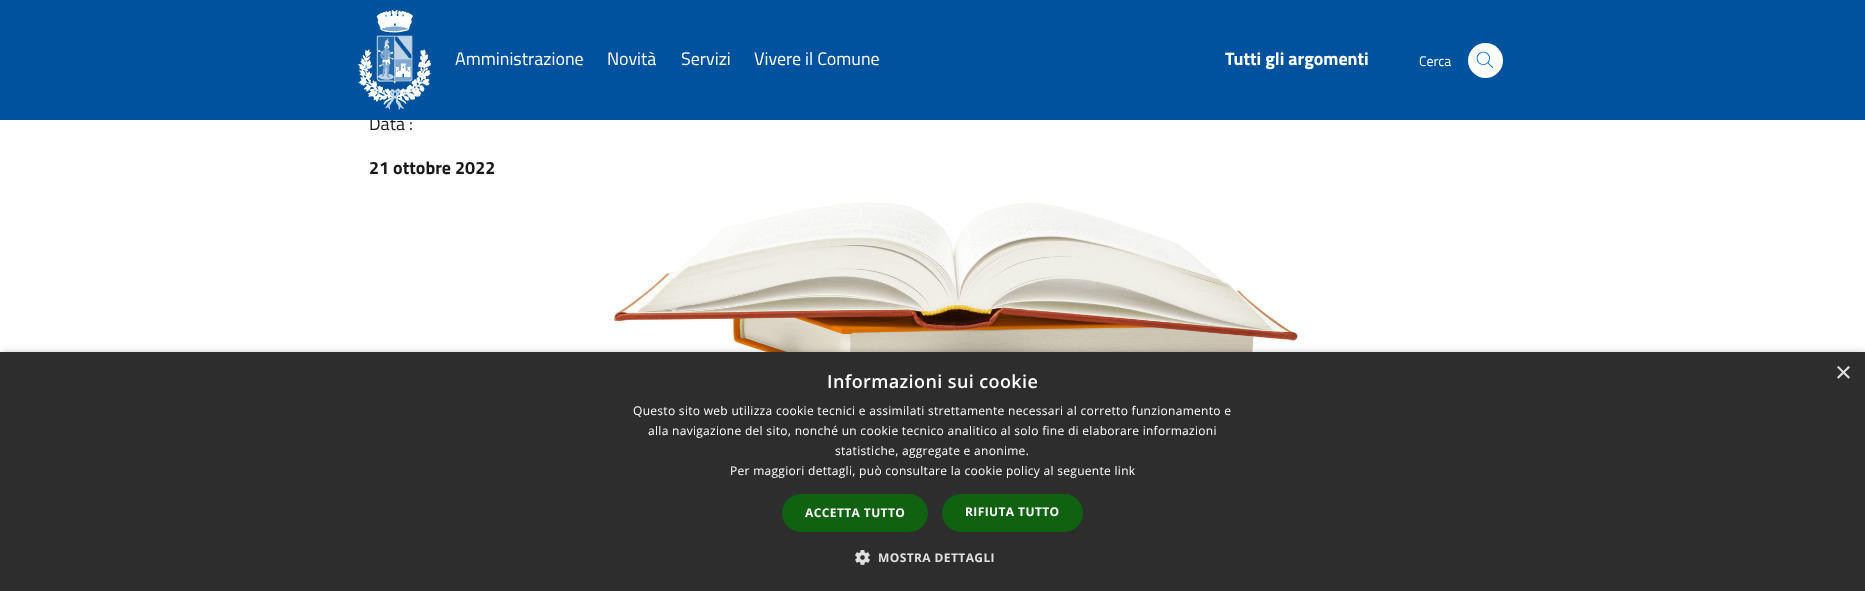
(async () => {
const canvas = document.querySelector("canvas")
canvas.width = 1865
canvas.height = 591
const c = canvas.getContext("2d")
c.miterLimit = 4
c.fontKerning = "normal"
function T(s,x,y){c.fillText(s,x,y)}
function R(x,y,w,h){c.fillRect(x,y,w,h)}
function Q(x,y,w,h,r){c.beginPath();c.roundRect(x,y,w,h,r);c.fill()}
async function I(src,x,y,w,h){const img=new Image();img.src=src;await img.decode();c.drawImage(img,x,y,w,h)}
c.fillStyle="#fff"
R(0,0,1865,591)
c.font="18px Titillium Web"
c.fillStyle="#1a1a1a"
T("Data :",369,130)
c.fillStyle="#00529e"
R(0,0,1865,120)
await I("1.png",358,10,73,100)
c.fillStyle="#fff"
T("Amministrazione",455,65)
T("Novità",607,65)
T("Servizi",681,65)
T("Vivere il Comune",754,65)
c.font="bold 18px Titillium Web"
T("Tutti gli argomenti",1225,65)
c.font="14px Titillium Web"
T("Cerca",1419,66)
c.beginPath()
c.arc(1485.5,60.5,17.5,0,7)
c.fill()
await I("2.png",1476,51,18,18)
c.font="bold 18px Titillium Web"
c.fillStyle="#1a1a1a"
T("21 ottobre 2022",369,174)
await I("3.png",568,202,733,150)
c.fillStyle="#00000059"
c.filter="blur(4px)"
c.beginPath()
c.rect(1,354,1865,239)
c.fill()
c.filter="none"
c.fillStyle="#2d2d2d"
R(0,352,1865,239)
c.font="29px Liberation Sans"
c.fillStyle="#e0e0e0"
T("×",1835,382)
c.letterSpacing="0.4px"
c.font="600 18px Open Sans"
c.fillStyle="#fff"
T("Informazioni sui cookie",827,388)
c.letterSpacing="0.3px"
c.font="12px Open Sans"
T("Questo sito web utilizza cookie tecnici e assimilati strettamente necessari al corretto funzionamento e",633,415)
T("alla navigazione del sito, nonché un cookie tecnico analitico al solo fine di elaborare informazioni",648,435)
T("statistiche, aggregate e anonime.",835,455)
T("Per maggiori dettagli, può consultare la cookie policy al seguente link",730,475)
c.fillStyle="#106110"
Q(782,494,146,38,19)
c.letterSpacing="0.4px"
c.font="bold 12px Open Sans"
c.fillStyle="#fff"
T("ACCETTA TUTTO",805,517)
c.fillStyle="#106110"
Q(942,494,141,38,19)
c.fillStyle="#fff"
T("RIFIUTA TUTTO",965,516)
await I("4.png",855,550,15,15)
c.fillStyle="#e0e0e0"
T("MOSTRA DETTAGLI",878,562)
})()
